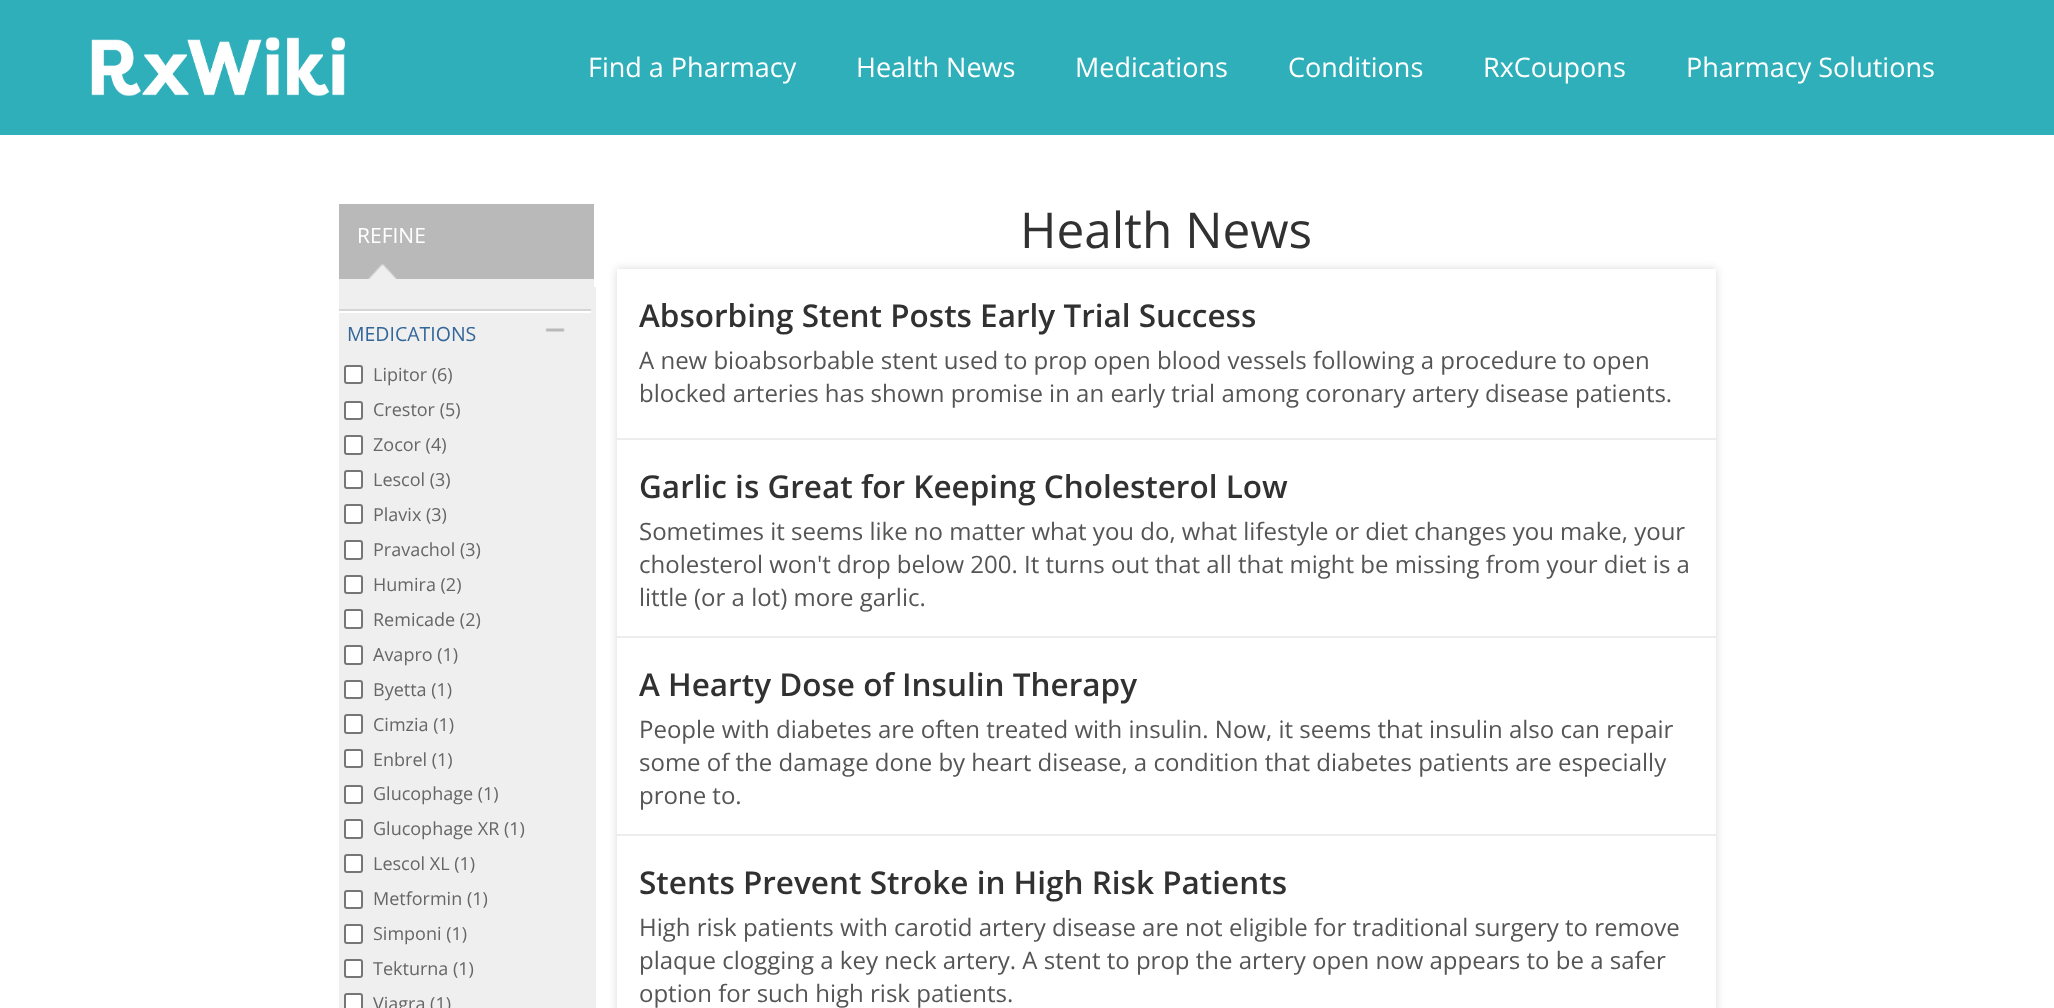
(async () => {
const canvas = document.querySelector("canvas")
canvas.width = 2054
canvas.height = 1008
const c = canvas.getContext("2d")
c.miterLimit = 4
c.fontKerning = "normal"
function T(s,x,y){c.fillText(s,x,y)}
function R(x,y,w,h){c.fillRect(x,y,w,h)}
async function I(src,x,y,w,h){const img=new Image();img.src=src;await img.decode();c.drawImage(img,x,y,w,h)}
let path
c.fillStyle="#fff"
R(0,0,2054,1008)
c.fillStyle="#2fafb9"
R(0,0,2054,135)
await I("1.png",91,37,254,59)
c.font="27px Open Sans"
c.fillStyle="#fff"
T("Find a Pharmacy",588,77)
T("Health News",856,77)
T("Medications",1075,77)
T("Conditions",1288,77)
T("RxCoupons",1483,77)
T("Pharmacy Solutions",1686,77)
c.fillStyle="#efefef"
R(339,279,255,8)
c.fillStyle="#bab9b9"
R(339,204,255,75)
await I("2.png",368,264,29,15)
c.font="21px Open Sans"
c.fillStyle="#fff"
T("REFINE",357,243)
c.fillStyle="#efefef"
R(339,287,257,721)
c.fillStyle="#d6d4d4"
R(339,309,252,2)
c.fillStyle="#fff"
R(339,311,252,2)
await I("3.png",545,328,20,4)
c.font="19.5px Open Sans"
c.fillStyle="#369"
T("MEDICATIONS",347,341)
c.fillStyle="#fff"
c.beginPath()
c.roundRect(345,366,17,17,2)
c.fill()
c.strokeStyle="#767676"
c.lineWidth=2
c.stroke()
c.font="18px Open Sans"
c.fillStyle="#666"
T("Lipitor (6)",373,381)
c.fillStyle="#fff"
c.beginPath()
c.roundRect(345,402,17,17,2)
c.fill()
c.stroke()
c.fillStyle="#666"
T("Crestor (5)",373,416)
c.fillStyle="#fff"
c.beginPath()
c.roundRect(345,436,17,18,2)
c.fill()
c.stroke()
c.fillStyle="#666"
T("Zocor (4)",373,451)
c.fillStyle="#fff"
c.beginPath()
c.roundRect(345,471,17,17,2)
c.fill()
c.stroke()
c.fillStyle="#666"
T("Lescol (3)",373,486)
c.fillStyle="#fff"
c.beginPath()
c.roundRect(345,505,17,18,2)
c.fill()
c.stroke()
c.fillStyle="#666"
T("Plavix (3)",373,521)
c.fillStyle="#fff"
c.beginPath()
c.roundRect(345,541,17,18,2)
c.fill()
c.stroke()
c.fillStyle="#666"
T("Pravachol (3)",373,556)
c.fillStyle="#fff"
c.beginPath()
c.roundRect(345,576,17,17,2)
c.fill()
c.stroke()
c.fillStyle="#666"
T("Humira (2)",373,591)
c.fillStyle="#fff"
c.beginPath()
c.roundRect(345,610,17,18,2)
c.fill()
c.stroke()
c.fillStyle="#666"
T("Remicade (2)",373,626)
c.fillStyle="#fff"
c.beginPath()
c.roundRect(345,646,17,18,2)
c.fill()
c.stroke()
c.fillStyle="#666"
T("Avapro (1)",373,661)
c.fillStyle="#fff"
c.beginPath()
c.roundRect(345,681,17,17,2)
c.fill()
c.stroke()
c.fillStyle="#666"
T("Byetta (1)",373,696)
c.fillStyle="#fff"
c.beginPath()
c.roundRect(345,715,17,18,2)
c.fill()
c.stroke()
c.fillStyle="#666"
T("Cimzia (1)",373,731)
c.fillStyle="#fff"
c.beginPath()
c.roundRect(345,750,17,17,2)
c.fill()
c.stroke()
c.fillStyle="#666"
T("Enbrel (1)",373,766)
c.fillStyle="#fff"
c.beginPath()
c.roundRect(345,786,17,17,2)
c.fill()
c.stroke()
c.fillStyle="#666"
T("Glucophage (1)",373,800)
c.fillStyle="#fff"
c.beginPath()
c.roundRect(345,820,17,18,2)
c.fill()
c.stroke()
c.fillStyle="#666"
T("Glucophage XR (1)",373,835)
c.fillStyle="#fff"
c.beginPath()
c.roundRect(345,855,17,17,2)
c.fill()
c.stroke()
c.fillStyle="#666"
T("Lescol XL (1)",373,870)
c.fillStyle="#fff"
c.beginPath()
c.roundRect(345,891,17,17,2)
c.fill()
c.stroke()
c.fillStyle="#666"
T("Metformin (1)",373,905)
c.fillStyle="#fff"
c.beginPath()
c.roundRect(345,925,17,18,2)
c.fill()
c.stroke()
c.fillStyle="#666"
T("Simponi (1)",373,940)
c.fillStyle="#fff"
c.beginPath()
c.roundRect(345,960,17,17,2)
c.fill()
c.stroke()
c.fillStyle="#666"
T("Tekturna (1)",373,975)
c.fillStyle="#fff"
c.beginPath()
c.roundRect(345,994,17,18,2)
c.fill()
c.stroke()
c.fillStyle="#666"
T("Viagra (1)",373,1010)
c.font="49.5px Open Sans"
c.fillStyle="#313131"
T("Health News",1020,248)
c.save()
path = new Path2D("M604 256h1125v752h-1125zm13 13h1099v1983h-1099z")
c.clip(path,"evenodd")
c.fillStyle="#d7d7d7"
c.filter="blur(4px)"
c.beginPath()
c.rect(617,269,1099,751)
c.fill()
c.filter="none"
c.restore()
c.fillStyle="#ededed"
R(617,438,1099,2)
c.font="600 31.5px Open Sans"
c.fillStyle="#313131"
T("Absorbing Stent Posts Early Trial Success",639,327)
c.font="24px Open Sans"
c.fillStyle="#555"
T("A new bioabsorbable stent used to prop open blood vessels following a procedure to open",639,369)
T("blocked arteries has shown promise in an early trial among coronary artery disease patients.",639,402)
c.fillStyle="#ededed"
R(617,636,1099,2)
c.font="600 31.5px Open Sans"
c.fillStyle="#313131"
T("Garlic is Great for Keeping Cholesterol Low",639,498)
c.font="24px Open Sans"
c.fillStyle="#555"
T("Sometimes it seems like no matter what you do, what lifestyle or diet changes you make, your",639,540)
T("cholesterol won't drop below 200. It turns out that all that might be missing from your diet is a",639,573)
T("little (or a lot) more garlic.",639,606)
c.fillStyle="#ededed"
R(617,834,1099,2)
c.font="600 31.5px Open Sans"
c.fillStyle="#313131"
T("A Hearty Dose of Insulin Therapy",639,696)
c.font="24px Open Sans"
c.fillStyle="#555"
T("People with diabetes are often treated with insulin. Now, it seems that insulin also can repair",639,738)
T("some of the damage done by heart disease, a condition that diabetes patients are especially",639,771)
T("prone to.",639,804)
c.font="600 31.5px Open Sans"
c.fillStyle="#313131"
T("Stents Prevent Stroke in High Risk Patients",639,894)
c.font="24px Open Sans"
c.fillStyle="#555"
T("High risk patients with carotid artery disease are not eligible for traditional surgery to remove",639,936)
T("plaque clogging a key neck artery. A stent to prop the artery open now appears to be a safer",639,969)
T("option for such high risk patients.",639,1002)
})()
